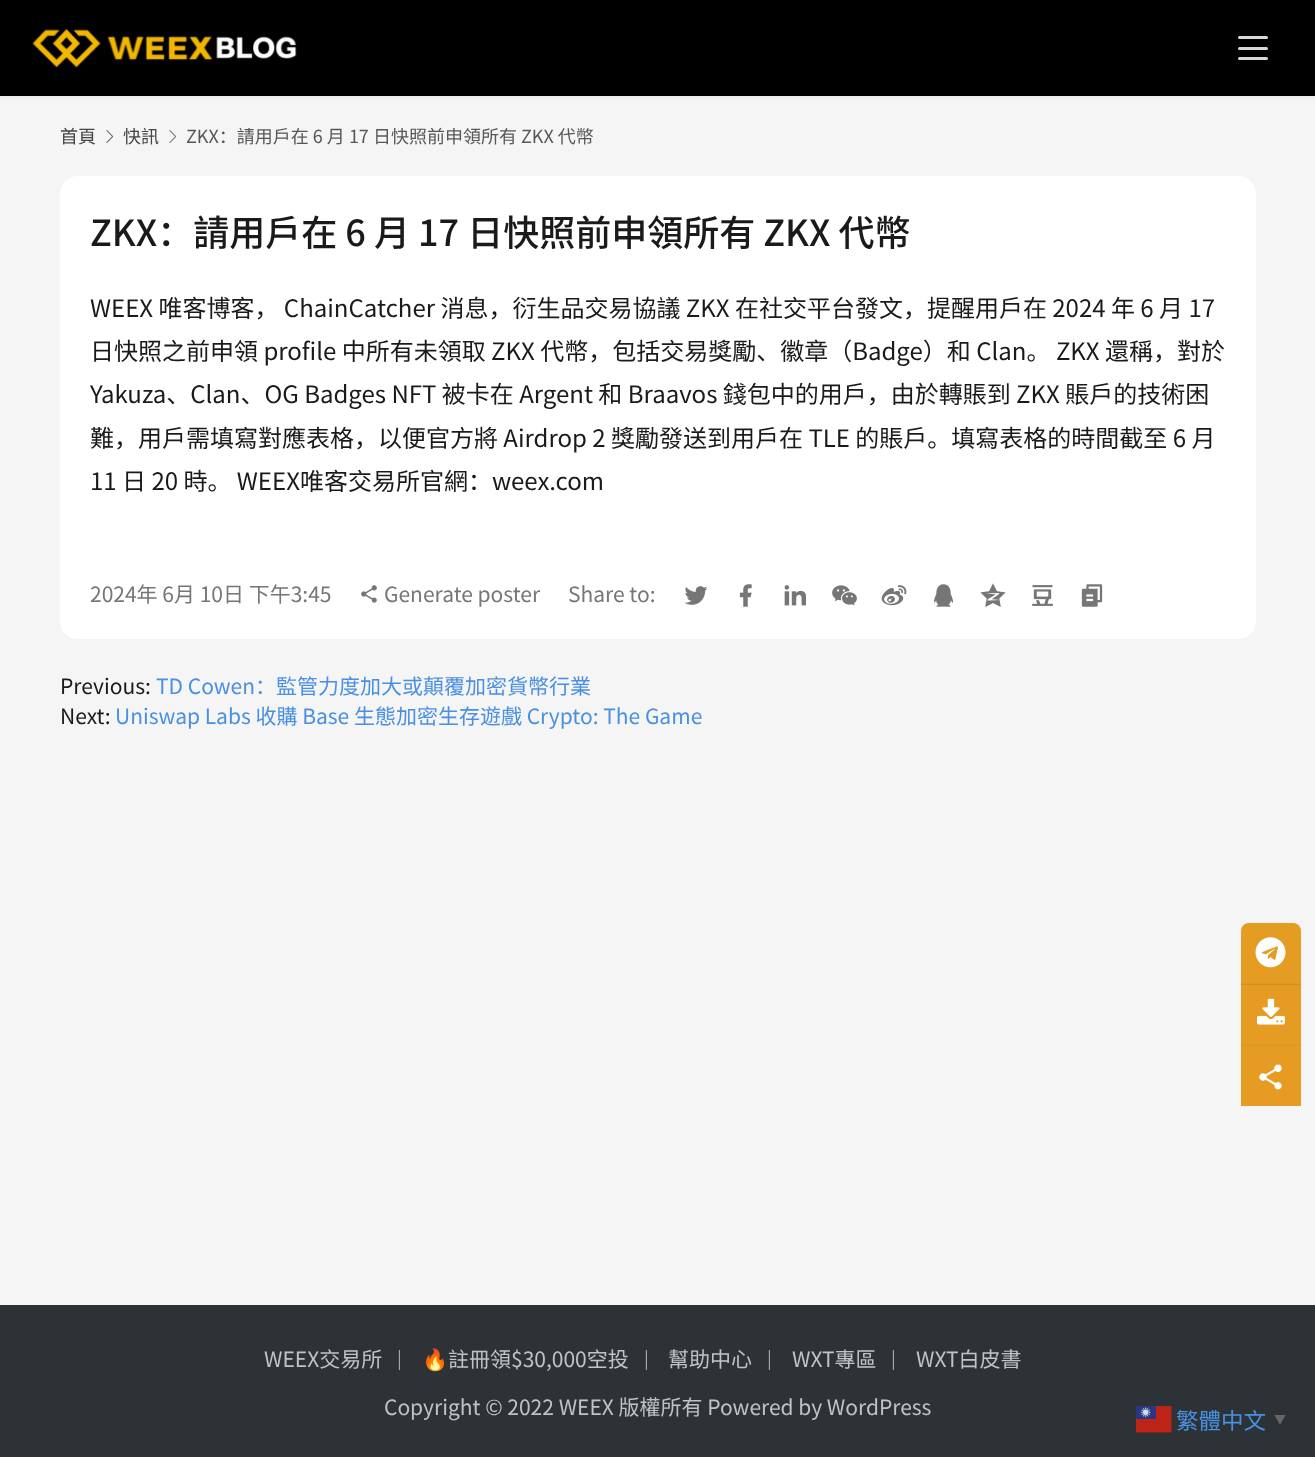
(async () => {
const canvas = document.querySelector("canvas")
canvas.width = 1315
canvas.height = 1457
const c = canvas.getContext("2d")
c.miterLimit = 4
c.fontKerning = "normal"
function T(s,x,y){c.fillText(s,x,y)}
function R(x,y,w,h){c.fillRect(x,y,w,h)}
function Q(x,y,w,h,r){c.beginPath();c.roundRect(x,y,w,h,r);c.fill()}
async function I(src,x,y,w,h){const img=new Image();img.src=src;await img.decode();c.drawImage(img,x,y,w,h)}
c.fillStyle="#f5f5f5"
R(0,0,1315,1457)
c.fillStyle="#1a1a1a0f"
c.filter="blur(2px)"
c.beginPath()
c.rect(-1,-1,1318,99)
c.fill()
c.filter="none"
c.fillStyle="#000"
R(0,0,1315,96)
await I("1.png",32,28,265,40)
c.fillStyle="#d9d9d9"
Q(1238,36,30,3,1.5)
Q(1238,47,30,3,1.5)
Q(1238,57,30,3,1.5)
c.font="18px Noto Sans CJK SC"
c.fillStyle="#464646"
T("首頁",60,143)
await I("2.png",106,130,8,13)
T("快訊",123,143)
await I("3.png",169,130,8,13)
c.fillStyle="#575757"
T("ZKX：請用戶在 6 月 17 日快照前申領所有 ZKX 代幣",186,143)
c.fillStyle="#fff"
Q(60,176,1196,463,18)
c.font="500 36px Noto Sans CJK SC"
c.fillStyle="#1a1a1a"
T("ZKX：請用戶在 6 月 17 日快照前申領所有 ZKX 代幣",90,246)
c.font="24px Noto Sans CJK SC"
T("WEEX 唯客博客， ChainCatcher 消息，衍生品交易協議 ZKX 在社交平台發文，提醒用戶在 2024 年 6 月 17",90,317)
T("日快照之前申領 profile 中所有未領取 ZKX 代幣，包括交易獎勵、徽章（Badge）和 Clan。 ZKX 還稱，對於",90,360)
T("Yakuza、Clan、OG Badges NFT 被卡在 Argent 和 Braavos 錢包中的用戶，由於轉賬到 ZKX 賬戶的技術困",90,403)
T("難，用戶需填寫對應表格，以便官方將 Airdrop 2 獎勵發送到用戶在 TLE 的賬戶。填寫表格的時間截至 6 月",90,447)
T("11 日 20 時。 WEEX唯客交易所官網：weex.com",90,490)
c.font="21px Noto Sans CJK SC"
c.fillStyle="#767676"
T("2024年 6月 10日 下午3:45",90,602)
await I("4.png",361,585,16,18)
T("Generate poster",384,602)
T("Share to:",568,602)
await I("5.png",684,586,24,19)
await I("6.png",739,584,13,23)
await I("7.png",784,585,22,21)
await I("8.png",832,585,25,21)
await I("9.png",881,585,26,21)
await I("10.png",934,584,19,23)
await I("11.png",980,583,26,24)
await I("12.png",1032,585,21,21)
await I("13.png",1081,584,22,23)
c.fillStyle="#1a1a1a"
T("Previous:",60,694)
c.fillStyle="#4a90e2"
T("TD Cowen：監管力度加大或顛覆加密貨幣行業",156,694)
c.fillStyle="#1a1a1a"
T("Next:",60,724)
c.fillStyle="#4a90e2"
T("Uniswap Labs 收購 Base 生態加密生存遊戲 Crypto: The Game",115,724)
c.fillStyle="#f5a623"
c.beginPath()
c.roundRect(1241,923,60,60,[8,8,0,0])
c.fill()
c.fillStyle="#1a1a1a12"
c.beginPath()
c.roundRect(1241,923,60,60,[8,8,0,0])
c.fill()
await I("14.png",1255,937,31,31)
c.fillStyle="#e69c22"
R(1241,985,60,59)
c.fillStyle="#df9822"
R(1241,983,60,1)
c.fillStyle="#d18f21"
R(1241,984,60,1)
await I("15.png",1257,998,28,27)
c.fillStyle="#df9822"
R(1241,1044,60,2)
c.fillStyle="#e69c22"
R(1241,1046,60,60)
await I("16.png",1259,1064,23,26)
c.fillStyle="#2d3236"
R(0,1305,1315,152)
c.fillStyle="#c0c2c3"
T("WEEX交易所",264,1367)
c.font="18px Noto Sans CJK SC"
c.fillStyle="#a3a5a7"
T("|",397,1365)
c.font="21px Noto Color Emoji"
c.fillStyle="#c0c2c3"
T("🔥",422,1367)
c.font="21px Noto Sans CJK SC"
T("註冊領$30,000空投",448,1367)
c.font="18px Noto Sans CJK SC"
c.fillStyle="#a3a5a7"
T("|",644,1365)
c.font="21px Noto Sans CJK SC"
c.fillStyle="#c0c2c3"
T("幫助中心",668,1367)
c.font="18px Noto Sans CJK SC"
c.fillStyle="#a3a5a7"
T("|",767,1365)
c.font="21px Noto Sans CJK SC"
c.fillStyle="#c0c2c3"
T("WXT專區",792,1367)
c.font="18px Noto Sans CJK SC"
c.fillStyle="#a3a5a7"
T("|",891,1365)
c.font="21px Noto Sans CJK SC"
c.fillStyle="#c0c2c3"
T("WXT白皮書",916,1367)
T("Copyright © 2022 WEEX 版權所有 Powered by WordPress",384,1415)
await I("17.png",1136,1406,36,27)
c.font="22.5px Noto Sans CJK SC"
c.fillStyle="#4a90e2"
T("繁體中文",1176,1429)
c.font="bold 12px Noto Sans CJK SC"
c.fillStyle="#666"
T("▼",1274,1424)
})()
